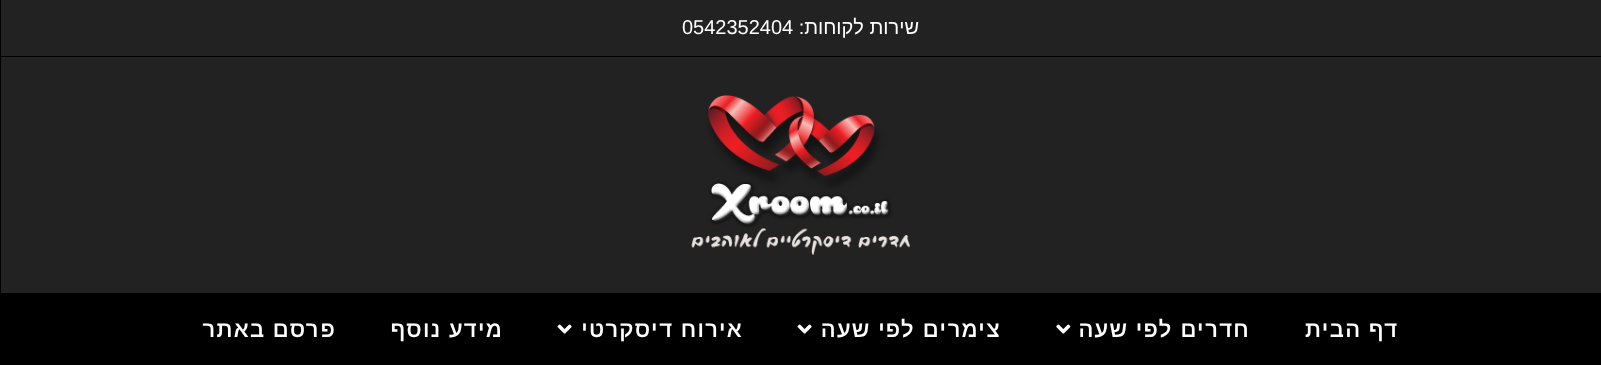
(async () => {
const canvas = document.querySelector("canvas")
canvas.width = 1601
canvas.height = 365
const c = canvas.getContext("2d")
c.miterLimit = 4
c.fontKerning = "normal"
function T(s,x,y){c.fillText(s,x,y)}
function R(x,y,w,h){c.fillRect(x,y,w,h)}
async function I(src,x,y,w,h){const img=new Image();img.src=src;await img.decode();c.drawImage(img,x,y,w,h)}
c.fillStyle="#000"
R(0,0,1601,365)
c.fillStyle="#222"
R(1,0,1600,293)
c.fillStyle="#000"
R(1,56,1600,1)
c.direction="rtl"
c.font="20px Arimo"
c.fillStyle="#fff"
T("שירות לקוחות:",919,34)
c.direction="ltr"
T("0542352404",682,34)
await I("1.png",691,95,219,160)
c.letterSpacing="1.25px"
c.direction="rtl"
c.font="600 22.5px Arimo"
T("דף הבית",1399,337)
T("חדרים לפי שעה",1250,337)
await I("2.png",1056,324,15,10)
T("צימרים לפי שעה",1001,337)
await I("3.png",797,324,15,10)
T("אירוח דיסקרטי",743,337)
await I("3.png",557,324,15,10)
T("מידע נוסף",503,337)
T("פרסם באתר",336,337)
})()
